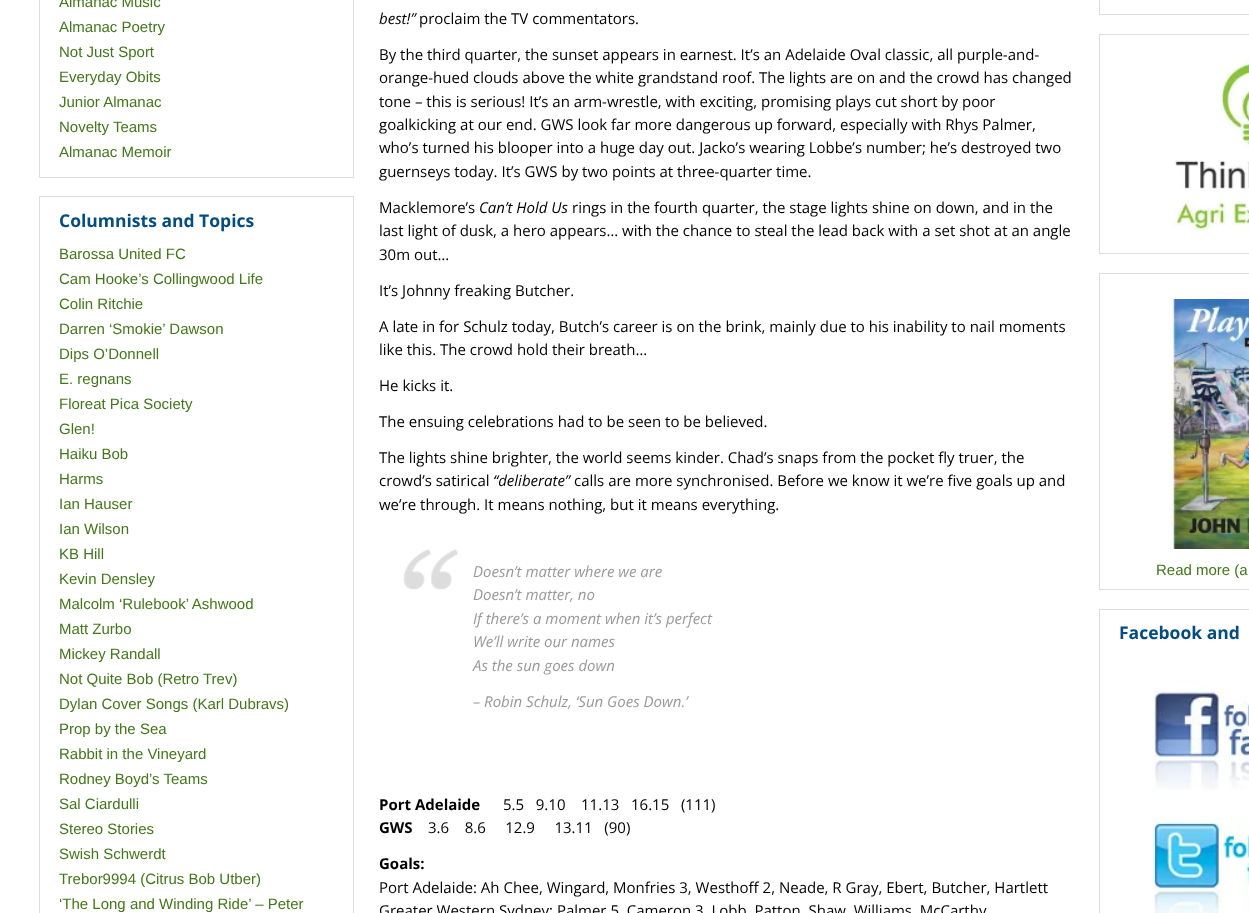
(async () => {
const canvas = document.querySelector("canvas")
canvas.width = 1249
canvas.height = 913
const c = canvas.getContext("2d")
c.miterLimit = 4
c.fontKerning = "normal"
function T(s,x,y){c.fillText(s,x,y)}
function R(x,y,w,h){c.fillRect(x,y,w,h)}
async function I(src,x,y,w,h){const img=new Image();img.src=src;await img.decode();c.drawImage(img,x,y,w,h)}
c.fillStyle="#fff"
R(0,0,1249,913)
c.strokeStyle="#ddd"
c.strokeRect(39.5,-.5,314,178)
c.font="15px Liberation Sans"
c.fillStyle="#44761d"
T("Almanac Music",59,7)
T("Almanac Poetry",59,32)
T("Not Just Sport",59,57)
T("Everyday Obits",59,82)
T("Junior Almanac",59,107)
T("Novelty Teams",59,132)
T("Almanac Memoir",59,157)
c.strokeRect(39.5,196.5,314,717)
c.font="bold 17.5px Open Sans"
c.fillStyle="#034c7f"
T("Columnists and Topics",59,227)
c.font="15px Liberation Sans"
c.fillStyle="#44761d"
T("Barossa United FC",59,259)
T("Cam Hooke’s Collingwood Life",59,284)
T("Colin Ritchie",59,309)
T("Darren ‘Smokie’ Dawson",59,334)
T("Dips O’Donnell",59,359)
T("E. regnans",59,384)
T("Floreat Pica Society",59,409)
T("Glen!",59,434)
T("Haiku Bob",59,459)
T("Harms",59,484)
T("Ian Hauser",59,509)
T("Ian Wilson",59,534)
T("KB Hill",59,559)
T("Kevin Densley",59,584)
T("Malcolm ‘Rulebook’ Ashwood",59,609)
T("Matt Zurbo",59,634)
T("Mickey Randall",59,659)
T("Not Quite Bob (Retro Trev)",59,684)
T("Dylan Cover Songs (Karl Dubravs)",59,709)
T("Prop by the Sea",59,734)
T("Rabbit in the Vineyard",59,759)
T("Rodney Boyd’s Teams",59,784)
T("Sal Ciardulli",59,809)
T("Stereo Stories",59,834)
T("Swish Schwerdt",59,859)
T("Trebor9994 (Citrus Bob Utber)",59,884)
T("‘The Long and Winding Ride’ – Peter",59,909)
c.font="italic 15px Open Sans"
c.fillStyle="#000"
T("best!”",379,24)
c.font="15px Open Sans"
T("proclaim the TV commentators.",419,24)
T("By the third quarter, the sunset appears in earnest. It’s an Adelaide Oval classic, all purple-and-",379,60)
T("orange-hued clouds above the white grandstand roof. The lights are on and the crowd has changed",379,83)
T("tone – this is serious! It’s an arm-wrestle, with exciting, promising plays cut short by poor",379,107)
T("goalkicking at our end. GWS look far more dangerous up forward, especially with Rhys Palmer,",379,130)
T("who’s turned his blooper into a huge day out. Jacko’s wearing Lobbe’s number; he’s destroyed two",379,153)
T("guernseys today. It’s GWS by two points at three-quarter time.",379,177)
T("Macklemore’s",379,213)
c.font="italic 15px Open Sans"
T("Can’t Hold Us",479,213)
c.font="15px Open Sans"
T("rings in the fourth quarter, the stage lights shine on down, and in the",572,213)
T("last light of dusk, a hero appears… with the chance to steal the lead back with a set shot at an angle",379,236)
T("30m out…",379,260)
T("It’s Johnny freaking Butcher.",379,296)
T("A late in for Schulz today, Butch’s career is on the brink, mainly due to his inability to nail moments",379,332)
T("like this. The crowd hold their breath…",379,355)
T("He kicks it.",379,391)
T("The ensuing celebrations had to be seen to be believed.",379,427)
T("The lights shine brighter, the world seems kinder. Chad’s snaps from the pocket fly truer, the",379,463)
T("crowd’s satirical",379,486)
c.font="italic 15px Open Sans"
T("“deliberate”",493,486)
c.font="15px Open Sans"
T("calls are more synchronised. Before we know it we’re five goals up and",574,486)
T("we’re through. It means nothing, but it means everything.",379,510)
await I("1.png",403,549,55,41)
c.font="italic 15px Open Sans"
c.fillStyle="#999"
T("Doesn’t matter where we are",473,577)
T("Doesn’t matter, no",473,600)
T("If there’s a moment when it’s perfect",473,624)
T("We’ll write our names",473,647)
T("As the sun goes down",473,671)
T("– Robin Schulz, ‘Sun Goes Down.’",473,707)
c.font="bold 15px Open Sans"
c.fillStyle="#000"
T("Port Adelaide",379,810)
c.font="15px Open Sans"
T("5.5   9.10    11.13   16.15   (111)",503,810)
c.font="bold 15px Open Sans"
T("GWS",379,833)
c.font="15px Open Sans"
T("3.6    8.6     12.9     13.11   (90)",428,833)
c.font="bold 15px Open Sans"
T("Goals:",379,869)
c.font="15px Open Sans"
T("Port Adelaide: Ah Chee, Wingard, Monfries 3, Westhoff 2, Neade, R Gray, Ebert, Butcher, Hartlett",379,893)
T("Greater Western Sydney: Palmer 5, Cameron 3, Lobb, Patton, Shaw, Williams, McCarthy",379,916)
c.strokeRect(1099.5,-.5,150,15)
c.strokeRect(1099.5,34.5,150,219)
await I("2.png",1172,60,77,172)
c.strokeRect(1099.5,273.5,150,316)
await I("3.png",1169,299,80,250)
c.font="15px Liberation Sans"
c.fillStyle="#44761d"
T("Read more (a",1156,575)
c.strokeRect(1099.5,609.5,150,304)
c.font="bold 17.5px Open Sans"
c.fillStyle="#034c7f"
T("Facebook and",1119,639)
await I("4.png",1154,687,95,103)
await I("5.png",1152,817,97,96)
})()
